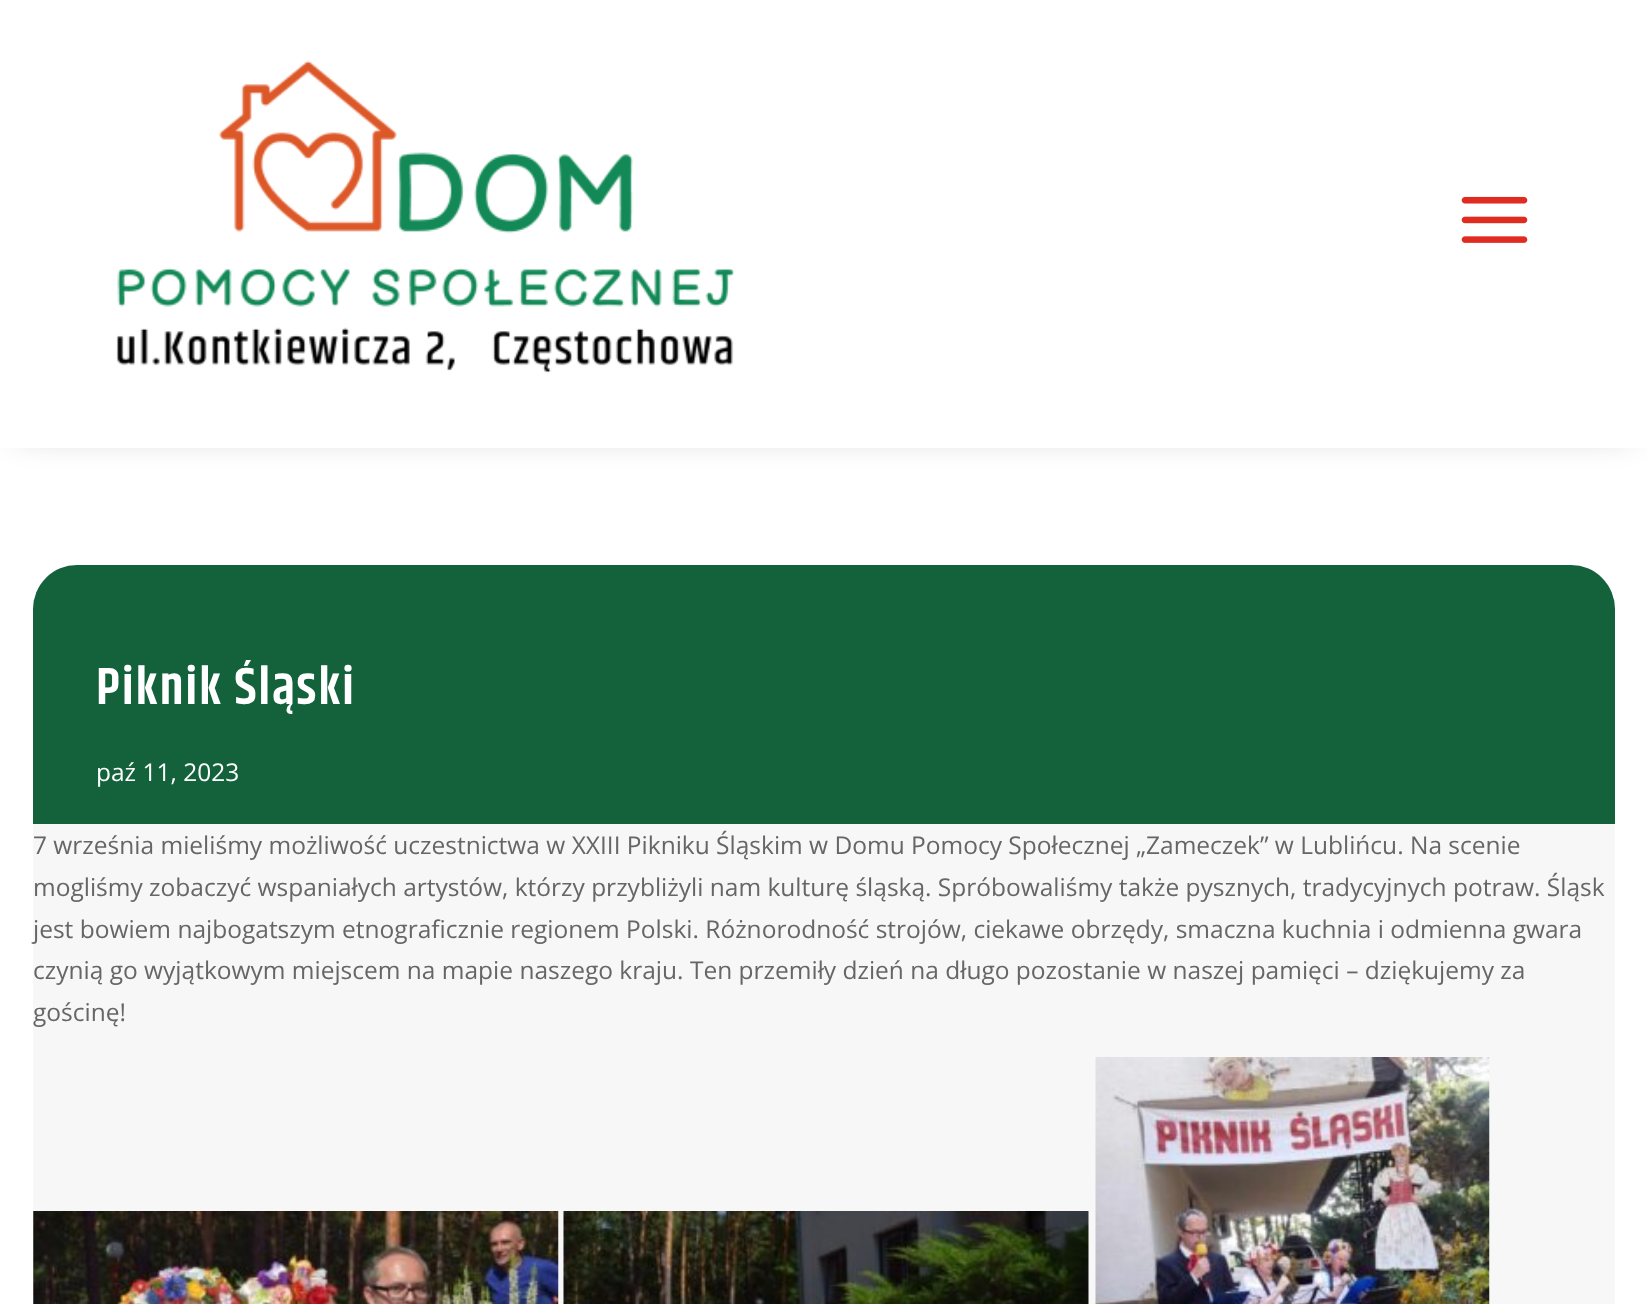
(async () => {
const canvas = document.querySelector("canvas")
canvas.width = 1647
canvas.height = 1304
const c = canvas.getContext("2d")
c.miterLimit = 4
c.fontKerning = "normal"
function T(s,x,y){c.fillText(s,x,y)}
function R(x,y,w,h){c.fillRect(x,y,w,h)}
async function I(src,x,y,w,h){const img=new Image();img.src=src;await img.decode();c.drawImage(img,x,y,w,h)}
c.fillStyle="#fff"
R(0,0,1647,1304)
c.fillStyle="#0000004d"
c.filter="blur(17.5px)"
c.beginPath()
c.rect(18,-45,1613,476)
c.fill()
c.filter="none"
c.fillStyle="#fff"
R(0,0,1647,448)
await I("1.png",116,60,619,314)
await I("2.png",1461,196,67,47)
c.fillStyle="#13623c"
c.beginPath()
c.roundRect(33,565,1582,259,[44,44,0,0])
c.fill()
c.letterSpacing="1.75px"
c.font="600 52.5px Khand"
c.fillStyle="#fff"
T("Piknik Śląski",96,704)
c.letterSpacing="0px"
c.font="24.5px Open Sans"
T("paź 11, 2023",96,781)
c.fillStyle="#f7f7f7"
R(33,824,1582,480)
c.fillStyle="#666"
T("7 września mieliśmy możliwość uczestnictwa w XXIII Pikniku Śląskim w Domu Pomocy Społecznej „Zameczek” w Lublińcu. Na scenie",33,854)
T("mogliśmy zobaczyć wspaniałych artystów, którzy przybliżyli nam kulturę śląską. Spróbowaliśmy także pysznych, tradycyjnych potraw. Śląsk",33,896)
T("jest bowiem najbogatszym etnograficznie regionem Polski. Różnorodność strojów, ciekawe obrzędy, smaczna kuchnia i odmienna gwara",33,938)
T("czynią go wyjątkowym miejscem na mapie naszego kraju. Ten przemiły dzień na długo pozostanie w naszej pamięci – dziękujemy za",33,979)
T("gościnę!",33,1021)
await I("3.png",33,1211,526,93)
await I("4.png",563,1211,526,93)
await I("5.png",1095,1057,395,247)
})()
